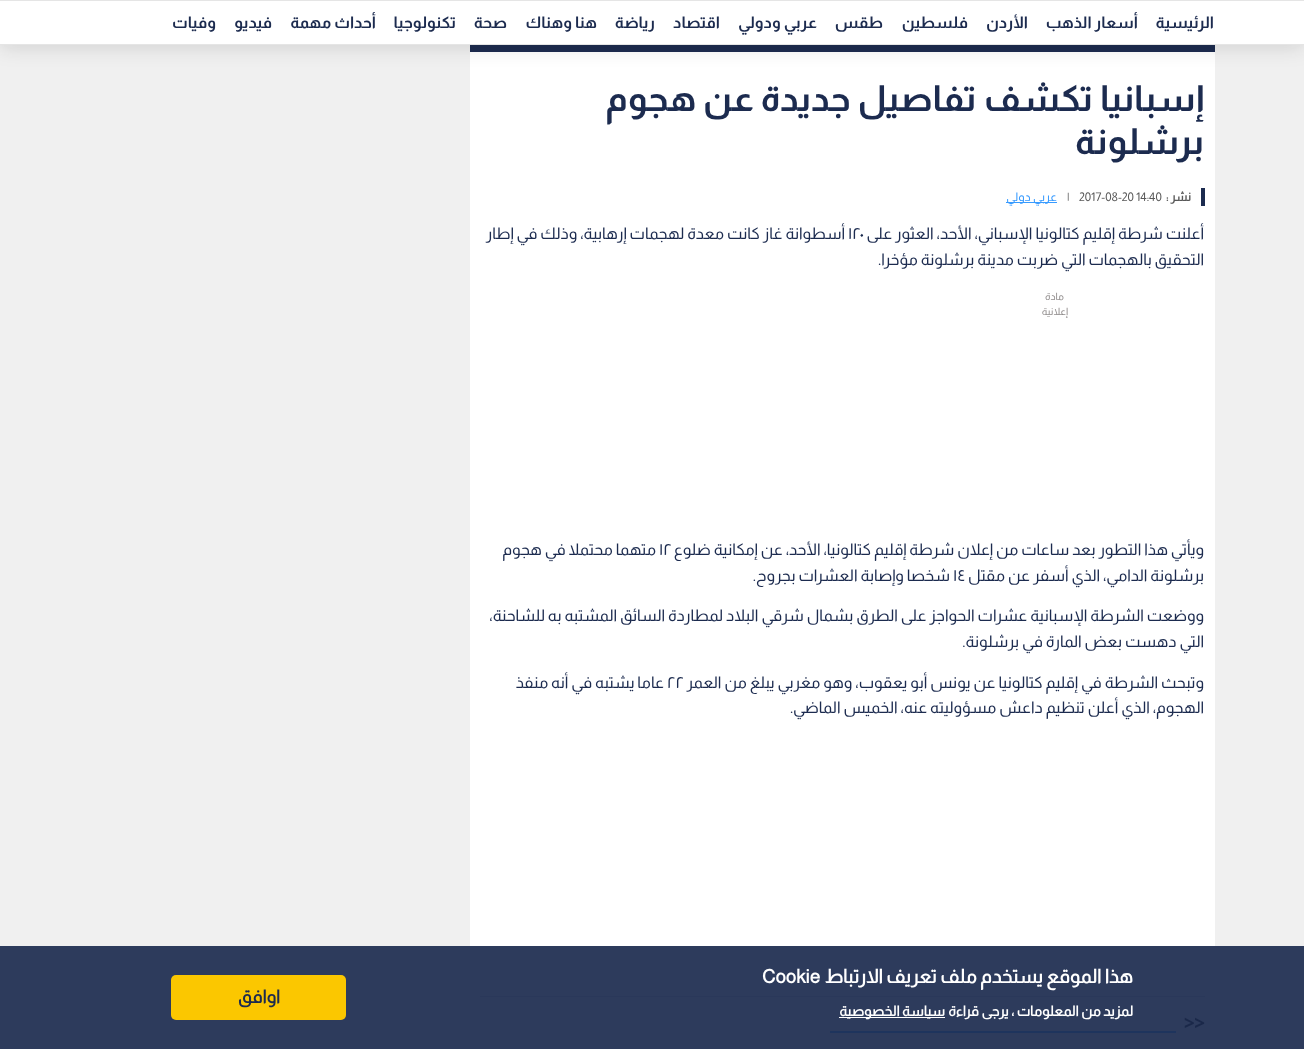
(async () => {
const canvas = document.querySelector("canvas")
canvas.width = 1304
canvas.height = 1049
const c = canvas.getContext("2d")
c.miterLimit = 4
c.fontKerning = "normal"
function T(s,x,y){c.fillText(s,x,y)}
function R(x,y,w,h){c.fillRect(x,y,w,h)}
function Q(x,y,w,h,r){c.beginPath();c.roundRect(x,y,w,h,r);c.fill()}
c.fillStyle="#f0f0f0"
R(0,0,1304,1049)
c.fillStyle="#2d3b5c"
R(0,946,1304,103)
c.fillStyle="#fff"
R(470,52,745,894)
c.fillStyle="#1c2b4f"
R(470,45,745,7)
c.fillStyle="#14141426"
c.filter="blur(10px)"
c.beginPath()
c.rect(0,2,1304,45)
c.fill()
c.filter="none"
c.fillStyle="#fff"
R(0,1,1304,43)
c.fillStyle="#e5e5e5"
R(0,0,1304,1)
R(0,44,1304,1)
c.direction="rtl"
c.font="bold 16px Almarai"
c.fillStyle="#1c2b4f"
T("الرئيسية",1214,28)
T("أسعار الذهب",1138,28)
T("الأردن",1028,28)
T("فلسطين",968,28)
T("طقس",883,28)
T("عربي ودولي",817,28)
T("اقتصاد",720,28)
T("رياضة",655,28)
T("هنا وهناك",597,28)
T("صحة",507,28)
T("تكنولوجيا",456,28)
T("أحداث مهمة",376,28)
T("فيديو",272,28)
T("وفيات",216,28)
c.font="bold 19px 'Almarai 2'"
c.fillStyle="#fff"
T("هذا الموقع يستخدم ملف تعريف الارتباط",1133,983)
c.direction="ltr"
T("Cookie",762,983)
c.direction="rtl"
c.font="bold 14px 'Almarai 2'"
T("لمزيد من المعلومات ، يرجى قراءة",1133,1016)
R(839,1017,106,1)
T("سياسة الخصوصية",945,1016)
c.fillStyle="#fbc700"
Q(171,975,175,45,5)
c.font="bold 18px 'Almarai 2'"
c.fillStyle="#1c2b4f"
T("اوافق",280,1003)
c.font="bold 36px Almarai"
T("إسبانيا تكشف تفاصيل جديدة عن هجوم",1204,111)
T("برشلونة",1204,154)
R(1201,188,4,18)
c.font="bold 12px 'Almarai 2'"
c.fillStyle="#595959"
T("نشر :",1191,201)
c.direction="ltr"
c.font="12px Almarai"
T("2017-08-20 14:40",1079,201)
T("|",1067,201)
c.fillStyle="#389bff"
R(1006,202,51,1)
c.direction="rtl"
T("عربي دولي",1057,201)
c.font="16px Almarai"
c.fillStyle="#1c2b4f"
T("أعلنت شرطة إقليم كتالونيا الإسباني، الأحد، العثور على",1204,239)
c.direction="ltr"
T("١٢٠",848,239)
c.direction="rtl"
T("أسطوانة غاز كانت معدة لهجمات إرهابية، وذلك في إطار",845,239)
T("التحقيق بالهجمات التي ضربت مدينة برشلونة مؤخرا.",1204,265)
c.font="10px Almarai"
c.fillStyle="#918d8d"
T("مادة",1064,300)
T("إعلانية",1068,315)
c.font="16px Almarai"
c.fillStyle="#1c2b4f"
T("ويأتي هذا التطور بعد ساعات من إعلان شرطة إقليم كتالونيا، الأحد، عن إمكانية ضلوع",1204,555)
c.direction="ltr"
T("١٢",659,555)
c.direction="rtl"
T("متهما محتملا في هجوم",656,555)
T("برشلونة الدامي، الذي أسفر عن مقتل",1204,581)
c.direction="ltr"
T("١٤",953,581)
c.direction="rtl"
T("شخصا وإصابة العشرات بجروح.",950,581)
T("ووضعت الشرطة الإسبانية عشرات الحواجز على الطرق بشمال شرقي البلاد لمطاردة السائق المشتبه به للشاحنة،",1204,621)
T("التي دهست بعض المارة في برشلونة.",1204,647)
T("وتبحث الشرطة في إقليم كتالونيا عن يونس أبو يعقوب، وهو مغربي يبلغ من العمر",1204,688)
c.direction="ltr"
T("٢٢",667,688)
c.direction="rtl"
T("عاما يشتبه في أنه منفذ",664,688)
T("الهجوم، الذي أعلن تنظيم داعش مسؤوليته عنه، الخميس الماضي.",1204,713)
c.fillStyle="#2a385a"
R(480,996,725,1)
c.direction="ltr"
c.font="bold 20px 'Almarai 2'"
c.fillStyle="#1a2849"
T(">>",1184,1030)
c.fillStyle="#1e345d"
R(830,1031,346,2)
})()
